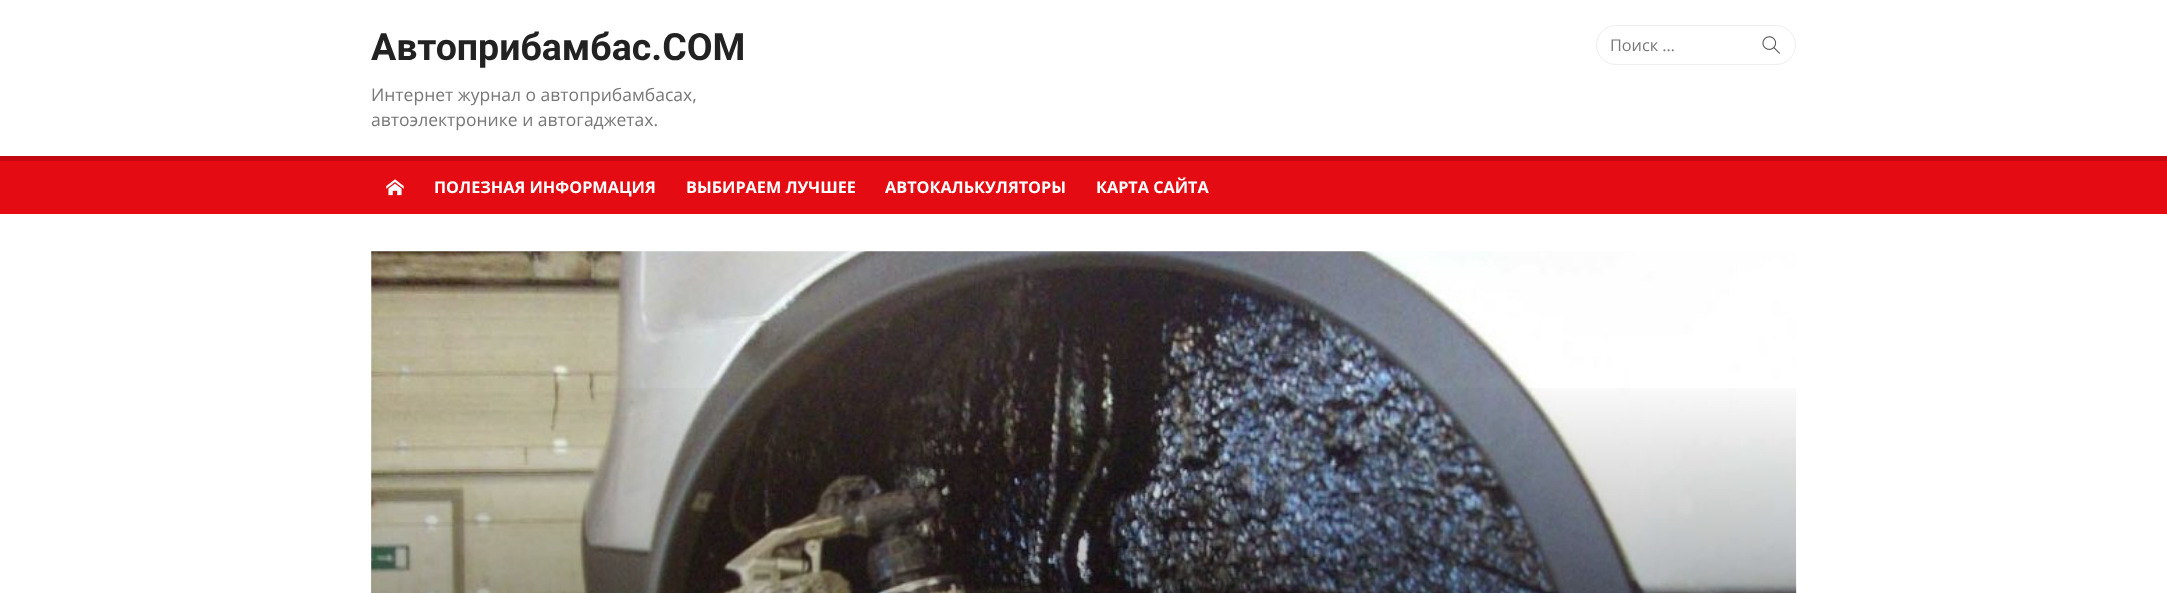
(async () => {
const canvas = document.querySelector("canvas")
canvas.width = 2167
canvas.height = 593
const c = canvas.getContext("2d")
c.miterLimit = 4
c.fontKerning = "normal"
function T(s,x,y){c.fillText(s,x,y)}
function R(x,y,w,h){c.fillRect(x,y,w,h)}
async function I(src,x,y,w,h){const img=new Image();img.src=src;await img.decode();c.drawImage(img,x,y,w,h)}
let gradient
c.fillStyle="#fff"
R(0,0,2167,593)
c.font="bold 37.5px Roboto"
c.fillStyle="#222"
T("Автоприбамбас.COM",371,60)
c.font="17.5px Open Sans"
c.fillStyle="#777"
T("Интернет журнал о автоприбамбасах,",371,101)
T("автоэлектронике и автогаджетах.",371,126)
c.beginPath()
c.roundRect(1596.5,25.5,199,39,19.5)
c.strokeStyle="#eee"
c.stroke()
c.font="16.25px Open Sans"
T("Поиск …",1610,51)
await I("1.png",1762,36,18,18)
c.fillStyle="#e50b12"
R(0,161,2167,53)
c.fillStyle="#c3090f"
R(0,156,2167,5)
await I("2.png",386,179,18,17)
c.font="bold 16.25px Open Sans"
c.fillStyle="#fff"
T("ПОЛЕЗНАЯ ИНФОРМАЦИЯ",434,193)
T("ВЫБИРАЕМ ЛУЧШЕЕ",686,193)
T("АВТОКАЛЬКУЛЯТОРЫ",885,193)
T("КАРТА САЙТА",1096,193)
await I("3.png",371,251,1426,342)
gradient = c.createLinearGradient(1084,371,1084,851)
gradient.addColorStop(0,"#00000000")
gradient.addColorStop(1,"#00000099")
c.fillStyle = gradient
R(371,388,1425,205)
})()
